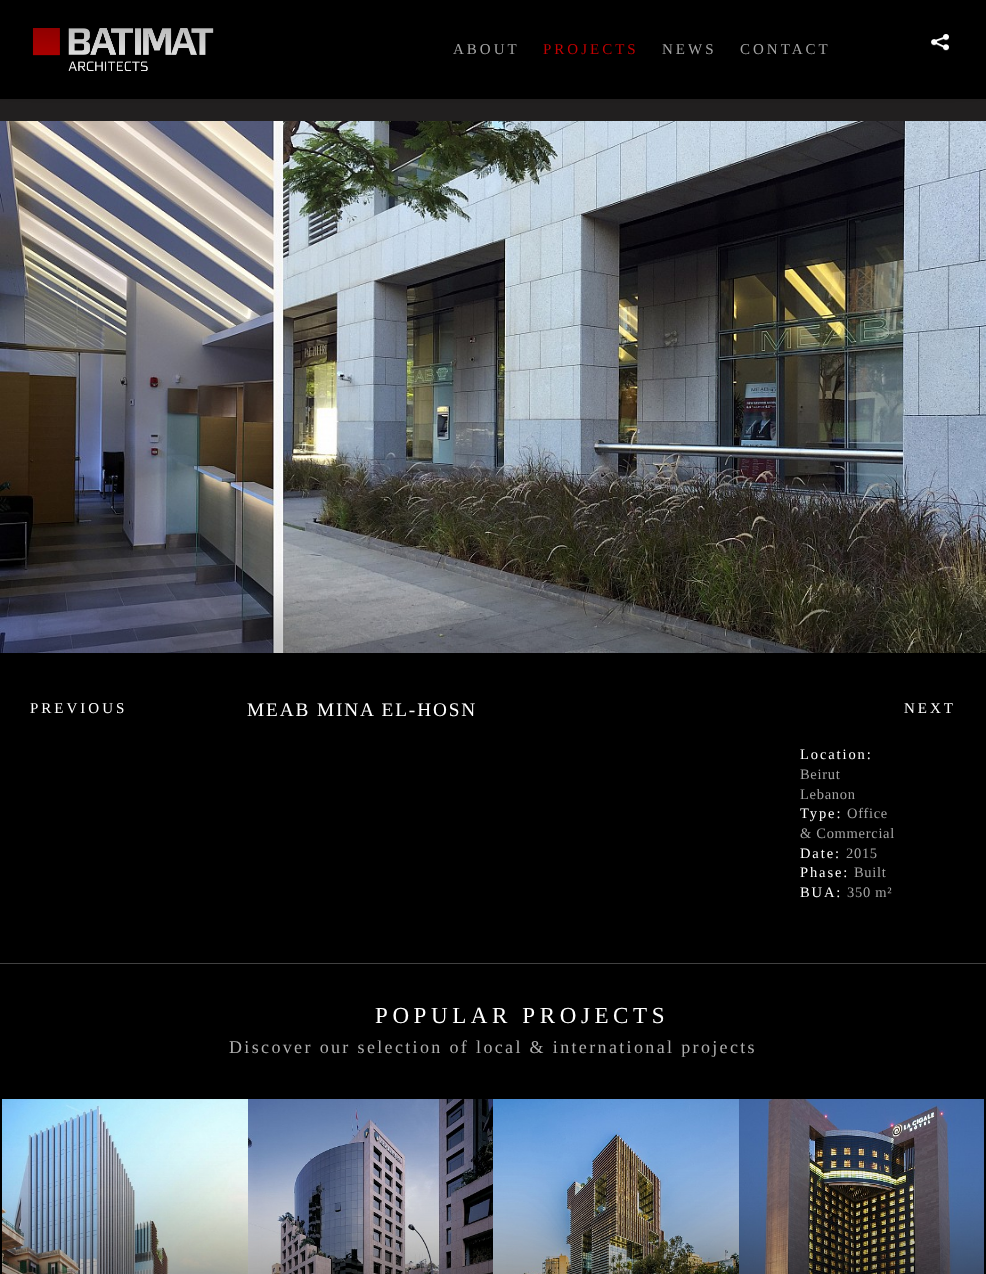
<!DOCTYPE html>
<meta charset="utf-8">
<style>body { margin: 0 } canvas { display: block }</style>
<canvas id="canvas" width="986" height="1274"></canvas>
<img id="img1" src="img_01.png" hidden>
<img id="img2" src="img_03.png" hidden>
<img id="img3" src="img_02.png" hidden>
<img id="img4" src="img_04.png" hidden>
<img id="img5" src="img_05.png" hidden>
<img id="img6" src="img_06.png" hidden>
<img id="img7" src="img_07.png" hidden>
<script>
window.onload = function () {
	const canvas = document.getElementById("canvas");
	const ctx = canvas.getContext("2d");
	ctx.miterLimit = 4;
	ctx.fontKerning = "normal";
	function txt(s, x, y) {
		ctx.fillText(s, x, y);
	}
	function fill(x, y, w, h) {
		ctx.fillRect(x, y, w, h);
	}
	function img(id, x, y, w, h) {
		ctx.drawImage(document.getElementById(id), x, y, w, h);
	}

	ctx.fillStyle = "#000000";
	fill(0, 0, 986, 1274);
	img("img1", 32, 28, 182, 43);
	ctx.fillStyle = "#211F1F";
	fill(0, 99, 986, 22);
	img("img2", 0, 121, 986, 532);
	ctx.fillStyle = "rgba(0, 0, 0, 0.75)";
	ctx.filter = "blur(35px)";
	ctx.beginPath();
	ctx.rect(-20, -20, 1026, 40);
	ctx.fill();
	ctx.filter = "none";
	img("img3", 931, 34, 18, 17);
	ctx.fillStyle = "rgba(0, 0, 0, 0.45)";
	ctx.filter = "blur(35px)";
	ctx.beginPath();
	ctx.rect(-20, 633, 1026, 40);
	ctx.fill();
	ctx.filter = "none";
	ctx.fillStyle = "#414141";
	fill(0, 963, 986, 1);
	img("img4", 2, 1099, 246, 175);
	ctx.save();
	ctx.beginPath();
	ctx.rect(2, 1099, 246, 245);
	ctx.clip();
	ctx.fillStyle = "rgba(0, 0, 0, 0.45)";
	ctx.filter = "blur(50px)";
	ctx.beginPath();
	ctx.rect(-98, 1244, 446, 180);
	ctx.fill();
	ctx.filter = "none";
	ctx.restore();
	img("img5", 248, 1099, 245, 175);
	ctx.save();
	ctx.beginPath();
	ctx.rect(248, 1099, 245, 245);
	ctx.clip();
	ctx.fillStyle = "rgba(0, 0, 0, 0.45)";
	ctx.filter = "blur(50px)";
	ctx.beginPath();
	ctx.rect(148, 1244, 445, 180);
	ctx.fill();
	ctx.filter = "none";
	ctx.restore();
	img("img6", 493, 1099, 246, 175);
	ctx.save();
	ctx.beginPath();
	ctx.rect(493, 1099, 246, 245);
	ctx.clip();
	ctx.fillStyle = "rgba(0, 0, 0, 0.45)";
	ctx.filter = "blur(50px)";
	ctx.beginPath();
	ctx.rect(393, 1244, 446, 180);
	ctx.fill();
	ctx.filter = "none";
	ctx.restore();
	img("img7", 739, 1099, 245, 175);
	ctx.save();
	ctx.beginPath();
	ctx.rect(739, 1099, 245, 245);
	ctx.clip();
	ctx.fillStyle = "rgba(0, 0, 0, 0.45)";
	ctx.filter = "blur(50px)";
	ctx.beginPath();
	ctx.rect(639, 1244, 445, 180);
	ctx.fill();
	ctx.filter = "none";
	ctx.restore();
	ctx.letterSpacing = "3px";
	ctx.font = "15px Liberation Serif";
	ctx.fillStyle = "#A4A4A4";
	txt("ABOUT", 453, 54);
	ctx.fillStyle = "#C20000";
	txt("PROJECTS", 543, 54);
	ctx.fillStyle = "#A4A4A4";
	txt("NEWS", 662, 54);
	txt("CONTACT", 740, 54);
	ctx.fillStyle = "#FFFFFF";
	txt("PREVIOUS", 30, 713);
	ctx.letterSpacing = "1.9px";
	ctx.font = "19.25px Liberation Serif";
	txt("MEAB MINA EL-HOSN", 247, 716);
	ctx.letterSpacing = "3px";
	ctx.font = "15px Liberation Serif";
	txt("NEXT", 904, 713);
	ctx.letterSpacing = "1.9px";
	ctx.font = "14.5px Liberation Serif";
	txt("Location:", 800, 759);
	ctx.letterSpacing = "0.7px";
	ctx.fillStyle = "#A4A4A4";
	txt("Beirut", 800, 779);
	txt("Lebanon", 800, 799);
	ctx.letterSpacing = "1.9px";
	ctx.fillStyle = "#FFFFFF";
	txt("Type:", 800, 818);
	ctx.letterSpacing = "0.7px";
	ctx.fillStyle = "#A4A4A4";
	txt("Office", 847, 818);
	txt("& Commercial", 800, 838);
	ctx.letterSpacing = "1.9px";
	ctx.fillStyle = "#FFFFFF";
	txt("Date:", 800, 858);
	ctx.letterSpacing = "0.7px";
	ctx.fillStyle = "#A4A4A4";
	txt("2015", 846, 858);
	ctx.letterSpacing = "1.9px";
	ctx.fillStyle = "#FFFFFF";
	txt("Phase:", 800, 877);
	ctx.letterSpacing = "0.7px";
	ctx.fillStyle = "#A4A4A4";
	txt("Built", 854, 877);
	ctx.letterSpacing = "1.9px";
	ctx.fillStyle = "#FFFFFF";
	txt("BUA:", 800, 897);
	ctx.letterSpacing = "0.7px";
	ctx.fillStyle = "#A4A4A4";
	txt("350 m²", 847, 897);
	ctx.letterSpacing = "4.6px";
	ctx.font = "23px Liberation Serif";
	ctx.fillStyle = "#FFFFFF";
	txt("POPULAR PROJECTS", 375, 1023);
	ctx.letterSpacing = "2.35px";
	ctx.font = "18px Liberation Serif";
	ctx.fillStyle = "#AEAEAE";
	txt("Discover our selection of local & international projects", 229, 1053);
};
</script>
